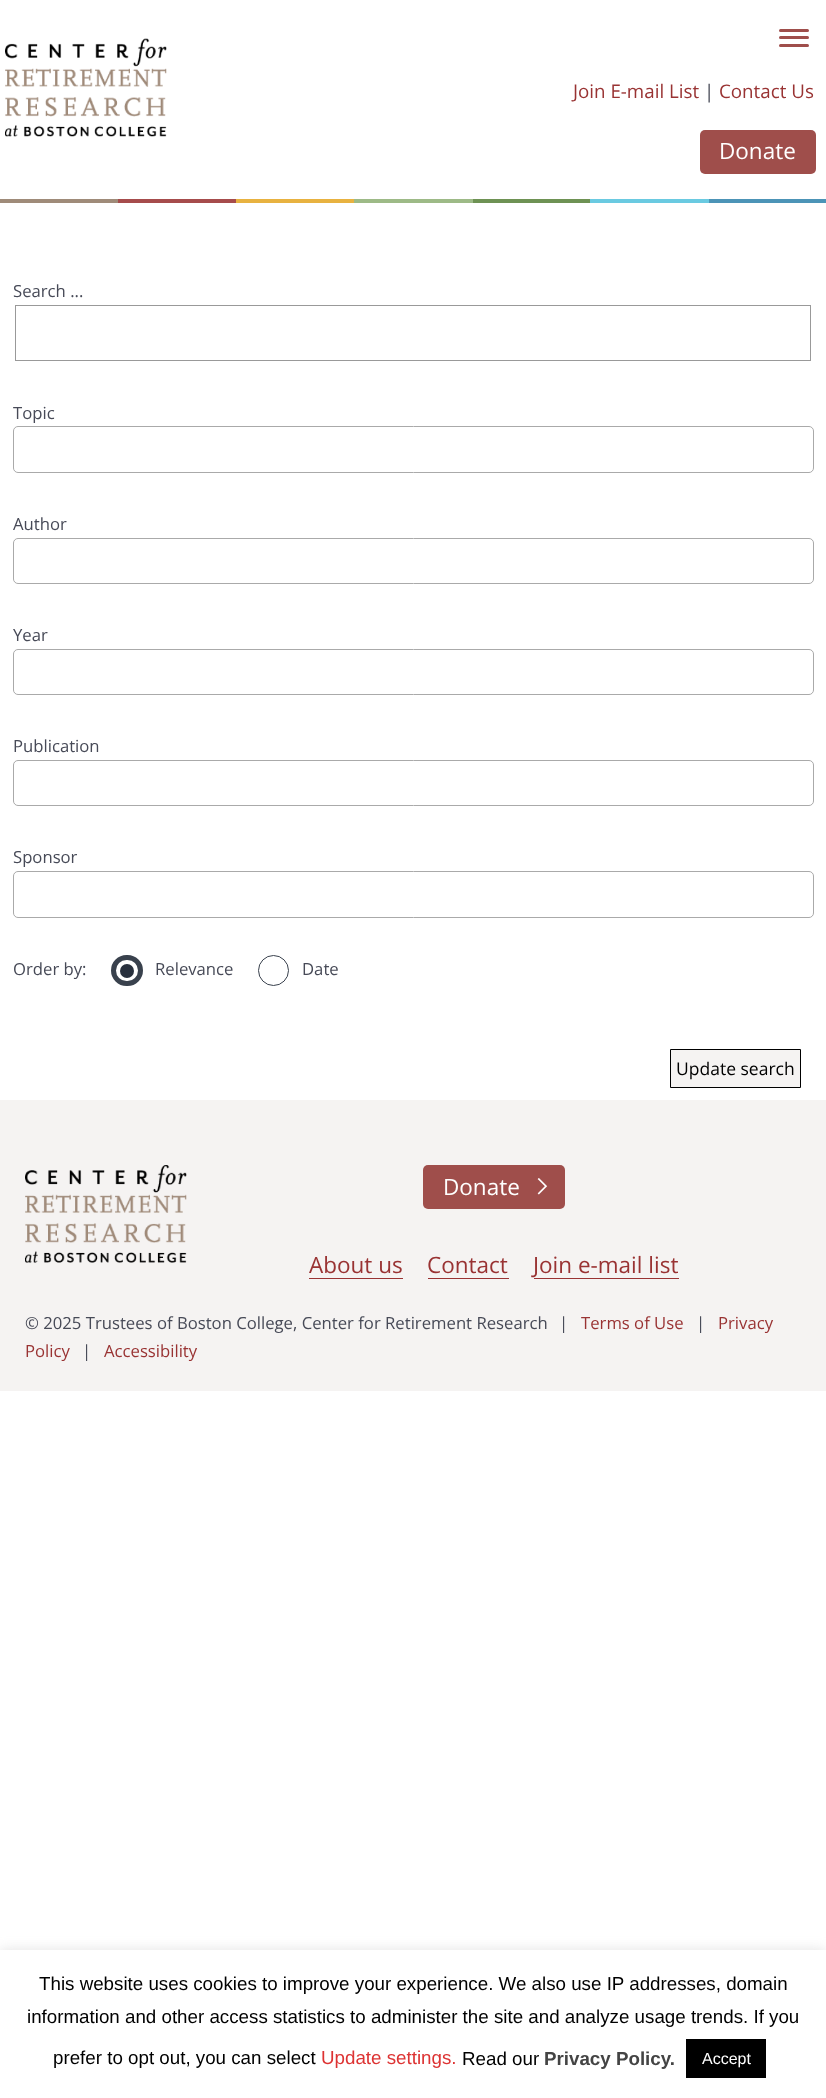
<!DOCTYPE html>
<meta charset="utf-8">
<style>body { margin: 0 } canvas { display: block }</style>
<canvas id="canvas" width="826" height="2098"></canvas>
<img id="img1" src="img_01.png" hidden>
<img id="img2" src="img_02.png" hidden>
<img id="img3" src="img_03.png" hidden>
<script>
window.onload = function () {
	const canvas = document.getElementById("canvas");
	const ctx = canvas.getContext("2d");
	ctx.miterLimit = 4;
	ctx.fontKerning = "normal";
	function txt(s, x, y) {
		ctx.fillText(s, x, y);
	}
	function fill(x, y, w, h) {
		ctx.fillRect(x, y, w, h);
	}
	function round(x, y, w, h, r) {
		ctx.beginPath();
		ctx.roundRect(x, y, w, h, r);
		ctx.fill();
	}
	function img(id, x, y, w, h) {
		ctx.drawImage(document.getElementById(id), x, y, w, h);
	}

	ctx.fillStyle = "#FFFFFF";
	fill(0, 0, 826, 2098);
	ctx.fillStyle = "#9F4E4B";
	round(779, 29, 30, 3, 1.5);
	round(779, 36, 30, 3, 1.5);
	round(779, 44, 30, 3, 1.5);
	img("img1", 5, 38, 162, 99);
	round(700, 130, 116, 44, 5);
	ctx.fillStyle = "#9F8B79";
	fill(0, 199, 118, 4);
	ctx.fillStyle = "#A64C4C";
	fill(118, 199, 118, 4);
	ctx.fillStyle = "#E8B240";
	fill(236, 199, 118, 4);
	ctx.fillStyle = "#9DBA87";
	fill(354, 199, 119, 4);
	ctx.fillStyle = "#6E9254";
	fill(473, 199, 117, 4);
	ctx.fillStyle = "#6ACAE1";
	fill(590, 199, 119, 4);
	ctx.fillStyle = "#4C94B7";
	fill(709, 199, 117, 4);
	ctx.strokeStyle = "#999999";
	ctx.strokeRect(15.5, 305.5, 795, 55);
	ctx.beginPath();
	ctx.roundRect(13.5, 426.5, 800, 46, 4.5);
	ctx.strokeStyle = "#AAAAAA";
	ctx.stroke();
	ctx.beginPath();
	ctx.roundRect(13.5, 538.5, 800, 45, 4.5);
	ctx.stroke();
	ctx.beginPath();
	ctx.roundRect(13.5, 649.5, 800, 45, 4.5);
	ctx.stroke();
	ctx.beginPath();
	ctx.roundRect(13.5, 760.5, 800, 45, 4.5);
	ctx.stroke();
	ctx.beginPath();
	ctx.roundRect(13.5, 871.5, 800, 46, 4.5);
	ctx.stroke();
	ctx.beginPath();
	ctx.roundRect(113.5, 957.5, 27, 26, 13);
	ctx.strokeStyle = "#39414D";
	ctx.lineWidth = 5;
	ctx.stroke();
	ctx.fillStyle = "#28303D";
	ctx.beginPath();
	ctx.arc(127, 971, 7, 0, Math.PI * 2);
	ctx.fill();
	ctx.beginPath();
	ctx.arc(273.5, 970.5, 15, 0, Math.PI * 2);
	ctx.lineWidth = 1;
	ctx.stroke();
	ctx.fillStyle = "#F5F3F2";
	ctx.beginPath();
	ctx.rect(670.5, 1049.5, 130, 38);
	ctx.fill();
	ctx.strokeStyle = "#000000";
	ctx.stroke();
	fill(0, 1100, 826, 291);
	img("img2", 25, 1165, 162, 98);
	ctx.fillStyle = "#9F4E4B";
	round(423, 1165, 142, 44, 5);
	img("img3", 537, 1178, 11, 17);
	ctx.fillStyle = "#993333";
	fill(309, 1278, 94, 1);
	fill(428, 1278, 81, 1);
	fill(534, 1278, 145, 1);
	ctx.fillStyle = "rgba(172, 171, 171, 0.3)";
	ctx.filter = "blur(6px)";
	ctx.beginPath();
	ctx.rect(0, 1949, 826, 149);
	ctx.fill();
	ctx.filter = "none";
	ctx.fillStyle = "#FFFFFF";
	fill(0, 1950, 826, 148);
	ctx.fillStyle = "#000000";
	fill(686, 2039, 80, 39);
	ctx.font = "18.75px Open Sans";
	ctx.fillStyle = "#993333";
	txt("Join E-mail List", 573, 98);
	ctx.fillStyle = "#474A57";
	txt("|", 704, 98);
	ctx.fillStyle = "#993333";
	txt("Contact Us", 719, 98);
	ctx.font = "22.5px Open Sans";
	ctx.fillStyle = "#FFFFFF";
	txt("Donate", 719, 159);
	ctx.font = "16.7px Open Sans";
	ctx.fillStyle = "#474A57";
	txt("Search ...", 13, 297);
	txt("Topic", 13, 419);
	txt("Author", 13, 530);
	txt("Year", 13, 641);
	txt("Publication", 13, 752);
	txt("Sponsor", 13, 863);
	txt("Order by:", 13, 975);
	txt("Relevance", 155, 975);
	txt("Date", 302, 975);
	ctx.font = "17.5px Open Sans";
	ctx.fillStyle = "#000000";
	txt("Update search", 676, 1075);
	ctx.font = "22.5px Open Sans";
	ctx.fillStyle = "#FFFFFF";
	txt("Donate", 443, 1195);
	ctx.fillStyle = "#993333";
	txt("About us", 309, 1273);
	txt("Contact", 427, 1273);
	txt("Join e-mail list", 533, 1273);
	ctx.font = "16.7px Open Sans";
	ctx.fillStyle = "#474A57";
	txt("© 2025 Trustees of Boston College, Center for Retirement Research", 25, 1329);
	txt("|", 559, 1329);
	ctx.fillStyle = "#993333";
	txt("Terms of Use", 581, 1329);
	ctx.fillStyle = "#474A57";
	txt("|", 696, 1329);
	ctx.fillStyle = "#993333";
	txt("Privacy", 718, 1329);
	txt("Policy", 25, 1357);
	ctx.fillStyle = "#474A57";
	txt("|", 82, 1357);
	ctx.fillStyle = "#993333";
	txt("Accessibility", 104, 1357);
	ctx.font = "18.75px Liberation Sans";
	ctx.fillStyle = "#000000";
	txt("This website uses cookies to improve your experience. We also use IP addresses, domain", 39, 1990);
	txt("information and other access statistics to administer the site and analyze usage trends. If you", 27, 2023);
	txt("prefer to opt out, you can select", 53, 2064);
	ctx.fillStyle = "#DD3333";
	txt("Update settings.", 321, 2064);
	ctx.fillStyle = "#000000";
	txt("Read our", 462, 2065);
	ctx.font = "bold 18.75px Liberation Sans";
	ctx.fillStyle = "#444444";
	txt("Privacy Policy.", 544, 2065);
	ctx.font = "16px Liberation Sans";
	ctx.fillStyle = "#FFFFFF";
	txt("Accept", 702, 2064);
};
</script>
